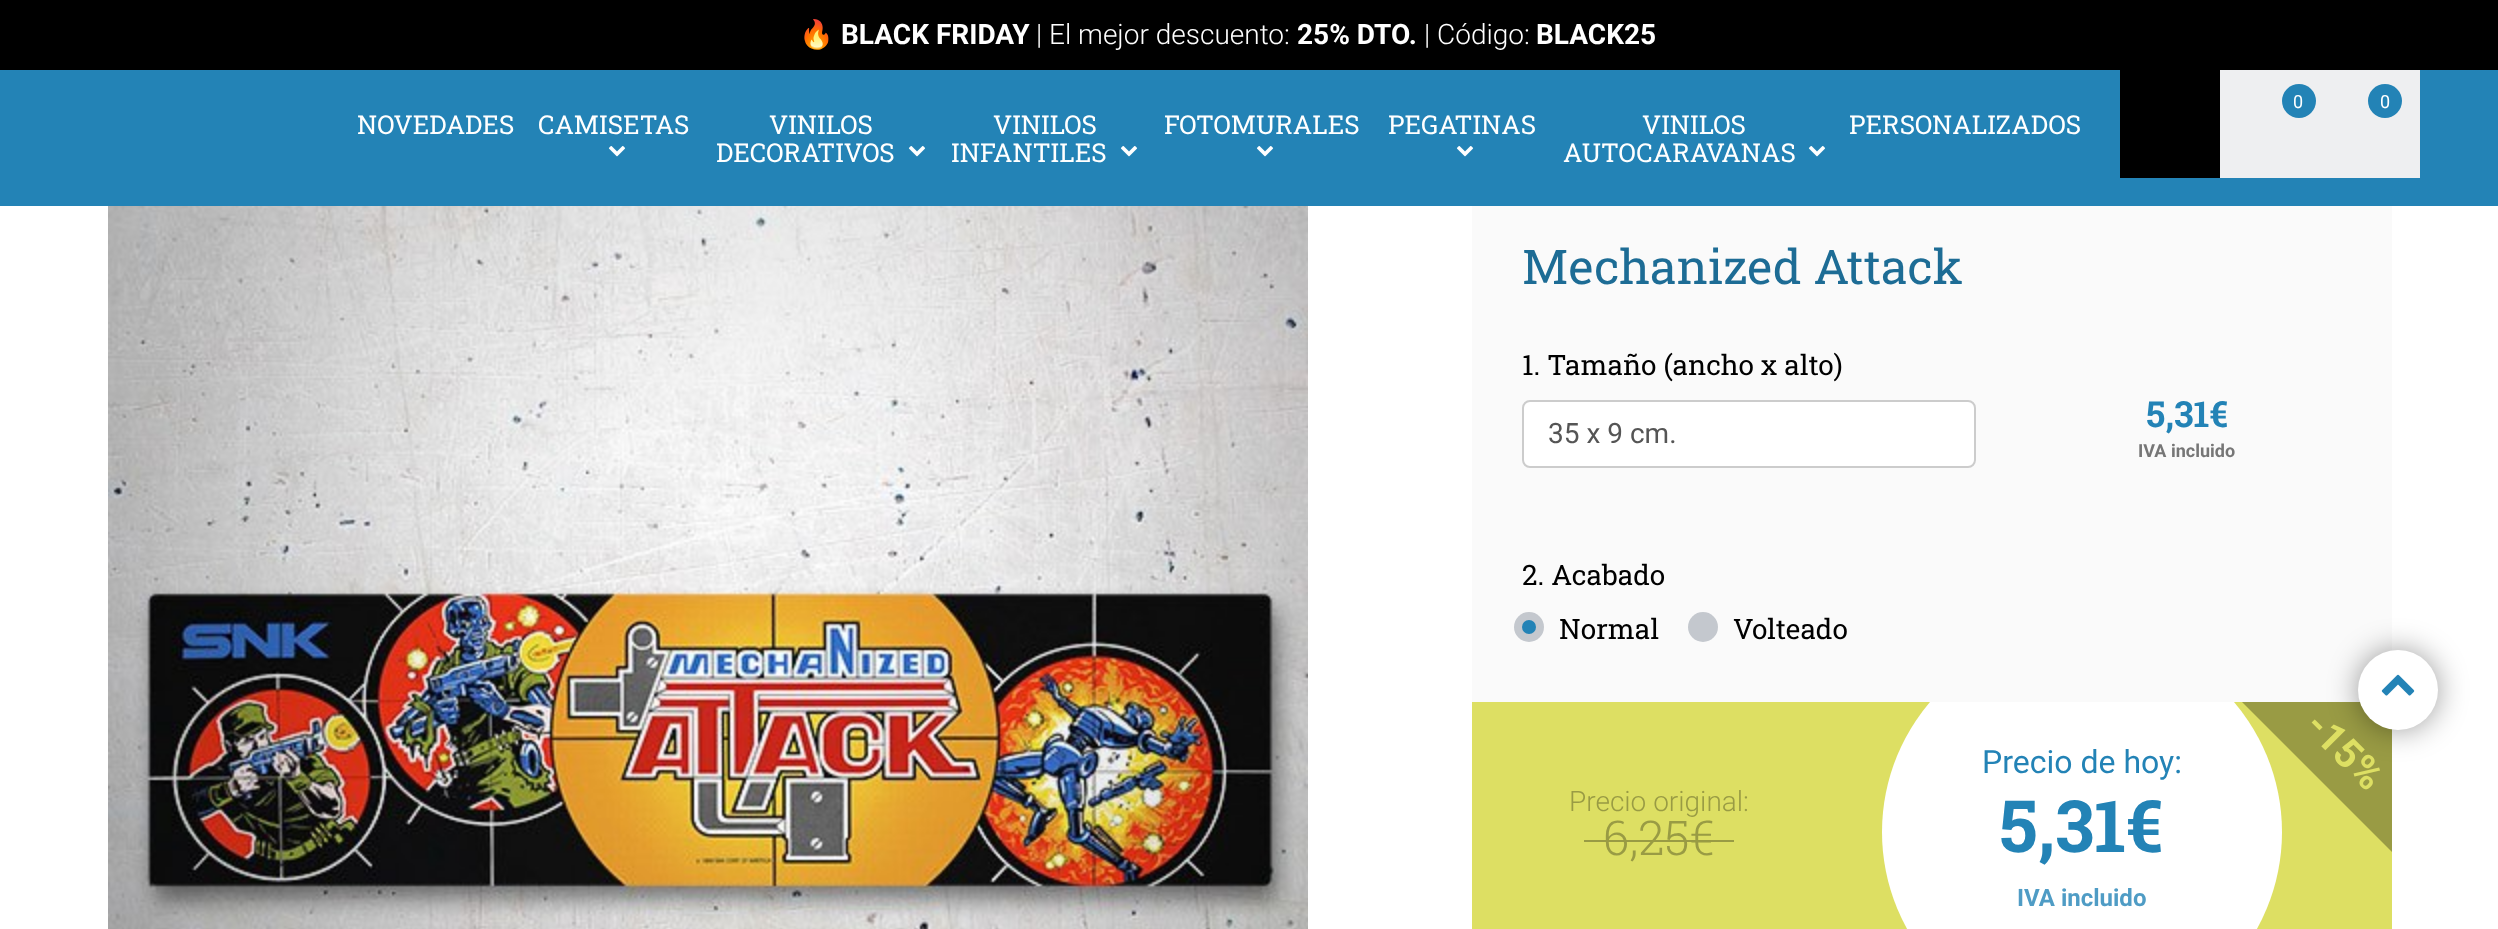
<!DOCTYPE html>
<meta charset="utf-8">
<style>body { margin: 0 } canvas { display: block }</style>
<canvas id="canvas" width="2498" height="929"></canvas>
<img id="img1" src="img_01.png" hidden>
<img id="img2" src="img_02.png" hidden>
<img id="img3" src="img_03.png" hidden>
<script>
window.onload = function () {
	const canvas = document.getElementById("canvas");
	const ctx = canvas.getContext("2d");
	ctx.miterLimit = 4;
	ctx.fontKerning = "normal";
	function txt(s, x, y) {
		ctx.fillText(s, x, y);
	}
	function fill(x, y, w, h) {
		ctx.fillRect(x, y, w, h);
	}
	function img(id, x, y, w, h) {
		ctx.drawImage(document.getElementById(id), x, y, w, h);
	}

	ctx.fillStyle = "#FFFFFF";
	fill(0, 0, 2498, 929);
	ctx.fillStyle = "#000000";
	fill(0, 0, 2498, 70);
	ctx.fillStyle = "#2383B6";
	fill(0, 70, 2498, 136);
	ctx.fillStyle = "#000000";
	fill(2120, 70, 100, 108);
	ctx.fillStyle = "#EEEFF1";
	fill(2220, 70, 200, 108);
	ctx.fillStyle = "#2383B6";
	ctx.beginPath();
	ctx.arc(2299, 101, 17, 0, Math.PI * 2);
	ctx.fill();
	ctx.beginPath();
	ctx.arc(2385, 101, 17, 0, Math.PI * 2);
	ctx.fill();
	img("img1", 608, 146, 18, 11);
	img("img1", 908, 146, 18, 11);
	img("img1", 1120, 146, 18, 11);
	img("img1", 1256, 146, 18, 11);
	img("img1", 1456, 146, 18, 11);
	img("img1", 1808, 146, 18, 11);
	img("img2", 108, 206, 1200, 723);
	ctx.fillStyle = "#FAFAFA";
	fill(1472, 206, 920, 496);
	ctx.fillStyle = "#FFFFFF";
	ctx.beginPath();
	ctx.roundRect(1523, 401, 452, 66, 7);
	ctx.fill();
	ctx.strokeStyle = "#CCCCCC";
	ctx.lineWidth = 2;
	ctx.stroke();
	ctx.fillStyle = "#C4C8CE";
	ctx.beginPath();
	ctx.arc(1529, 627, 15, 0, Math.PI * 2);
	ctx.fill();
	ctx.fillStyle = "#2383B6";
	ctx.beginPath();
	ctx.arc(1529, 627, 7, 0, Math.PI * 2);
	ctx.fill();
	ctx.fillStyle = "#C4C8CE";
	ctx.beginPath();
	ctx.arc(1703, 627, 15, 0, Math.PI * 2);
	ctx.fill();
	ctx.fillStyle = "#DDDF63";
	fill(1472, 702, 920, 227);
	ctx.fillStyle = "#999B44";
	fill(1584, 840, 150, 2);
	ctx.save();
	ctx.beginPath();
	ctx.rect(1472, 702, 920, 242);
	ctx.clip();
	ctx.fillStyle = "#FFFFFF";
	ctx.beginPath();
	ctx.arc(2082, 832, 200, 0, Math.PI * 2);
	ctx.fill();
	ctx.restore();
	ctx.beginPath();
	ctx.moveTo(2242, 702);
	ctx.lineTo(2392, 702);
	ctx.lineTo(2392, 852);
	ctx.closePath();
	ctx.fill();
	ctx.fillStyle = "rgba(0, 0, 0, 0.4)";
	ctx.filter = "blur(15px)";
	ctx.beginPath();
	ctx.roundRect(2358, 650, 80, 80, 40);
	ctx.fill();
	ctx.filter = "none";
	ctx.font = "28px Noto Color Emoji";
	ctx.fillStyle = "#FFFFFF";
	txt("🔥", 799, 44);
	ctx.font = "bold 28px Roboto";
	txt("BLACK FRIDAY", 841, 44);
	ctx.font = "300 28px Roboto";
	txt("| El mejor descuento:", 1036, 44);
	ctx.font = "bold 28px Roboto";
	txt("25% DTO.", 1297, 44);
	ctx.font = "300 28px Roboto";
	txt("| Código:", 1424, 44);
	ctx.font = "bold 28px Roboto";
	txt("BLACK25", 1536, 44);
	ctx.font = "18px Roboto";
	txt("0", 2293, 108);
	txt("0", 2380, 108);
	ctx.font = "26px Roboto Slab";
	txt("NOVEDADES", 357, 134);
	txt("CAMISETAS", 538, 134);
	txt("VINILOS", 769, 134);
	txt("DECORATIVOS", 716, 162);
	txt("VINILOS", 993, 134);
	txt("INFANTILES", 951, 162);
	txt("FOTOMURALES", 1164, 134);
	txt("PEGATINAS", 1388, 134);
	txt("VINILOS", 1642, 134);
	txt("AUTOCARAVANAS", 1563, 162);
	txt("PERSONALIZADOS", 1849, 134);
	ctx.font = "48px Roboto Slab";
	ctx.fillStyle = "#1D6C95";
	txt("Mechanized Attack", 1522, 284);
	ctx.font = "28px Roboto Slab";
	ctx.fillStyle = "#000000";
	txt("1. Tamaño (ancho x alto)", 1522, 375);
	ctx.font = "28px Roboto";
	ctx.fillStyle = "#555555";
	txt("35 x 9 cm.", 1548, 443);
	ctx.font = "bold 36px Roboto Slab";
	ctx.fillStyle = "#2383B6";
	txt("5,31€", 2146, 427);
	ctx.font = "bold 18px Roboto";
	ctx.fillStyle = "#767676";
	txt("IVA incluido", 2138, 457);
	ctx.font = "28px Roboto Slab";
	ctx.fillStyle = "#000000";
	txt("2. Acabado", 1522, 585);
	txt("Normal", 1559, 639);
	txt("Volteado", 1733, 639);
	ctx.font = "300 28px Roboto";
	ctx.fillStyle = "#999B44";
	txt("Precio original:", 1569, 811);
	ctx.font = "300 48px Roboto Slab";
	txt("6,25€", 1603, 855);
	ctx.font = "32px Roboto";
	ctx.fillStyle = "#2383B6";
	txt("Precio de hoy:", 1982, 773);
	ctx.font = "bold 72px Roboto Slab";
	txt("5,31€", 1999, 852);
	ctx.font = "bold 24px Roboto";
	ctx.fillStyle = "#4F9CC5";
	txt("IVA incluido", 2017, 906);
	ctx.font = "bold 40px Roboto";
	ctx.fillStyle = "#DDDF63";
	ctx.save();
	ctx.translate(2303, 728);
	ctx.rotate(45 * Math.PI / 180);
	ctx.fillText("-15%", 0, 0);
	ctx.restore();
	ctx.fillStyle = "#FFFFFF";
	ctx.beginPath();
	ctx.arc(2398, 690, 40, 0, Math.PI * 2);
	ctx.fill();
	img("img3", 2381, 674, 34, 22);
};
</script>
